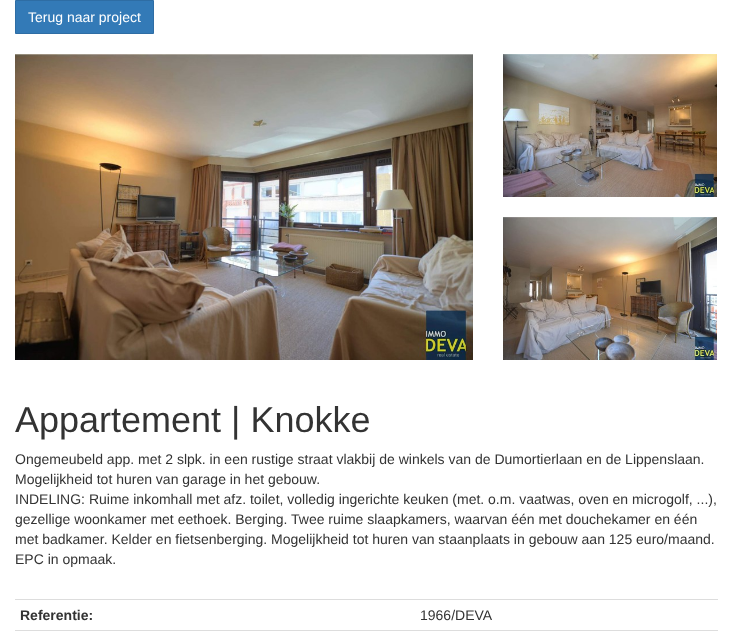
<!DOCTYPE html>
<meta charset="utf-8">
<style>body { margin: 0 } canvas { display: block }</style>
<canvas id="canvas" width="732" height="635"></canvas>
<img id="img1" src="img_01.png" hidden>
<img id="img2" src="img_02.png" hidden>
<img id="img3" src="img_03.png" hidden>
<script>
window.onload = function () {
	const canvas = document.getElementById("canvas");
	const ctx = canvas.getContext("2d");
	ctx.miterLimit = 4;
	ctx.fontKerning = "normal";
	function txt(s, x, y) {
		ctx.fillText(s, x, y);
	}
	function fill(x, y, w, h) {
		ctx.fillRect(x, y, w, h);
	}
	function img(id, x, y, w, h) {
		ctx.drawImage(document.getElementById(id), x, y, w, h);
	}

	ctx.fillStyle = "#FFFFFF";
	fill(0, 0, 732, 635);
	ctx.fillStyle = "#337AB7";
	ctx.beginPath();
	ctx.rect(15.5, 0.5, 138, 33);
	ctx.fill();
	ctx.strokeStyle = "#2E6DA4";
	ctx.stroke();
	img("img1", 15, 54, 458, 306);
	img("img2", 503, 54, 214, 143);
	img("img3", 503, 217, 214, 143);
	ctx.fillStyle = "#DDDDDD";
	fill(15, 599, 703, 1);
	fill(15, 630, 703, 1);
	ctx.font = "14px Liberation Sans";
	ctx.fillStyle = "#FFFFFF";
	txt("Terug naar project", 28, 22);
	ctx.font = "36px Liberation Sans";
	ctx.fillStyle = "#333333";
	txt("Appartement | Knokke", 15, 432);
	ctx.font = "14px Liberation Sans";
	txt("Ongemeubeld app. met 2 slpk. in een rustige straat vlakbij de winkels van de Dumortierlaan en de Lippenslaan.", 15, 464);
	txt("Mogelijkheid tot huren van garage in het gebouw.", 15, 484);
	txt("INDELING: Ruime inkomhall met afz. toilet, volledig ingerichte keuken (met. o.m. vaatwas, oven en microgolf, ...),", 15, 504);
	txt("gezellige woonkamer met eethoek. Berging. Twee ruime slaapkamers, waarvan één met douchekamer en één", 15, 524);
	txt("met badkamer. Kelder en fietsenberging. Mogelijkheid tot huren van staanplaats in gebouw aan 125 euro/maand.", 15, 544);
	txt("EPC in opmaak.", 15, 564);
	ctx.font = "bold 14px Liberation Sans";
	txt("Referentie:", 20, 620);
	ctx.font = "14px Liberation Sans";
	txt("1966/DEVA", 420, 620);
};
</script>
